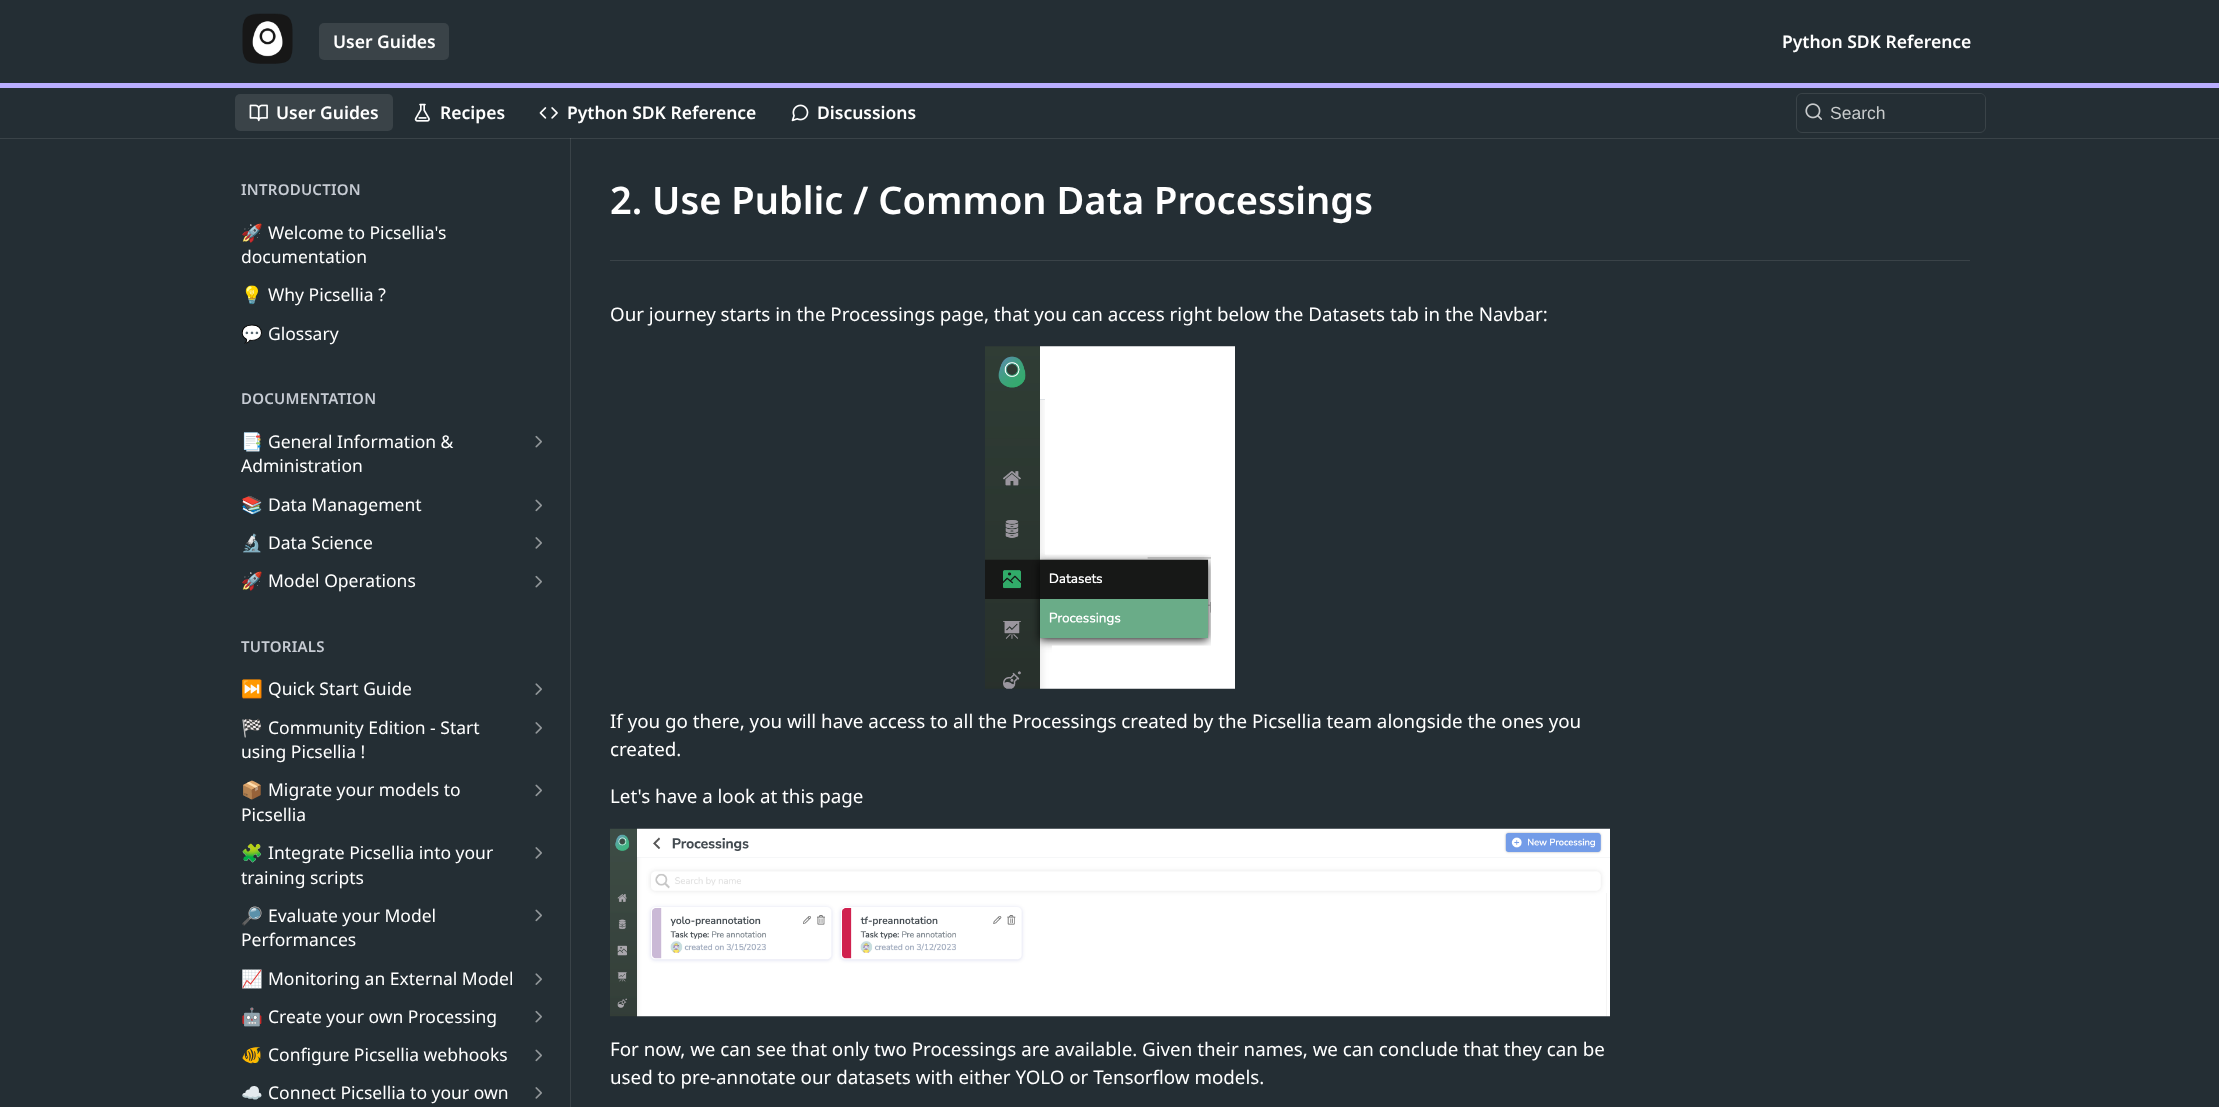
<!DOCTYPE html>
<meta charset="utf-8">
<style>body { margin: 0 } canvas { display: block }</style>
<canvas id="canvas" width="2219" height="1107"></canvas>
<img id="img1" src="img_01.png" hidden>
<img id="img2" src="img_02.png" hidden>
<img id="img3" src="img_03.png" hidden>
<img id="img4" src="img_04.png" hidden>
<img id="img5" src="img_05.png" hidden>
<img id="img6" src="img_06.png" hidden>
<img id="img7" src="img_07.png" hidden>
<img id="img8" src="img_08.png" hidden>
<img id="img9" src="img_09.png" hidden>
<img id="img10" src="img_10.png" hidden>
<img id="img11" src="img_11.png" hidden>
<img id="img12" src="img_12.png" hidden>
<script>
window.onload = function () {
	const canvas = document.getElementById("canvas");
	const ctx = canvas.getContext("2d");
	ctx.miterLimit = 4;
	ctx.fontKerning = "normal";
	function txt(s, x, y) {
		ctx.fillText(s, x, y);
	}
	function fill(x, y, w, h) {
		ctx.fillRect(x, y, w, h);
	}
	function round(x, y, w, h, r) {
		ctx.beginPath();
		ctx.roundRect(x, y, w, h, r);
		ctx.fill();
	}
	function img(id, x, y, w, h) {
		ctx.drawImage(document.getElementById(id), x, y, w, h);
	}

	ctx.fillStyle = "#242E34";
	fill(0, 0, 2219, 1107);
	ctx.fillStyle = "#3A4348";
	fill(0, 138, 2219, 1);
	ctx.fillStyle = "#BAAEFF";
	fill(0, 83, 2219, 5);
	img("img1", 242, 13, 51, 51);
	ctx.fillStyle = "#3A4348";
	round(319, 23, 130, 37, 5);
	round(235, 94, 158, 37, 5);
	img("img2", 249, 104, 19, 18);
	img("img3", 414, 103, 16, 19);
	img("img4", 539, 107, 19, 12);
	img("img5", 791, 104, 18, 18);
	ctx.beginPath();
	ctx.roundRect(1796.5, 93.5, 189, 39, 5.5);
	ctx.strokeStyle = "#3A4348";
	ctx.stroke();
	ctx.fillStyle = "#242E34";
	round(1798, 94, 187, 37, 5);
	img("img6", 1805, 103, 17, 17);
	ctx.fillStyle = "#3A4348";
	fill(570, 138, 1, 969);
	ctx.fillStyle = "#4E565A";
	fill(570, 138, 1, 1);
	img("img7", 535, 435, 7, 13);
	img("img8", 535, 499, 7, 13);
	img("img9", 535, 537, 7, 12);
	img("img7", 535, 575, 7, 13);
	img("img10", 535, 683, 7, 12);
	img("img9", 535, 722, 7, 12);
	img("img8", 535, 784, 7, 13);
	img("img9", 535, 847, 7, 12);
	img("img8", 535, 909, 7, 13);
	img("img10", 535, 973, 7, 12);
	img("img7", 535, 1010, 7, 13);
	img("img8", 535, 1049, 7, 13);
	img("img9", 535, 1087, 7, 12);
	ctx.fillStyle = "#3A4348";
	fill(610, 260, 1360, 1);
	img("img11", 985, 346, 250, 343);
	img("img12", 610, 828, 1000, 189);
	ctx.font = "600 17.5px Noto Sans";
	ctx.fillStyle = "#FFFFFF";
	txt("User Guides", 333, 48);
	txt("Python SDK Reference", 1782, 48);
	txt("User Guides", 276, 119);
	txt("Recipes", 440, 119);
	txt("Python SDK Reference", 567, 119);
	txt("Discussions", 817, 119);
	ctx.font = "17.5px Liberation Sans";
	ctx.fillStyle = "#C8CBCC";
	txt("Search", 1830, 119);
	ctx.letterSpacing = "0.25px";
	ctx.font = "600 15px Noto Sans";
	ctx.fillStyle = "#C6CBD3";
	txt("INTRODUCTION", 241, 195);
	ctx.letterSpacing = "0px";
	ctx.font = "17.5px Noto Color Emoji";
	ctx.fillStyle = "#FFFFFF";
	txt("🚀", 241, 239);
	ctx.font = "17.5px Noto Sans";
	txt("Welcome to Picsellia's", 268, 239);
	txt("documentation", 241, 263);
	ctx.font = "17.5px Noto Color Emoji";
	txt("💡", 241, 301);
	ctx.font = "17.5px Noto Sans";
	txt("Why Picsellia ?", 268, 301);
	ctx.font = "17.5px Noto Color Emoji";
	txt("💬", 241, 340);
	ctx.font = "17.5px Noto Sans";
	txt("Glossary", 268, 340);
	ctx.letterSpacing = "0.25px";
	ctx.font = "600 15px Noto Sans";
	ctx.fillStyle = "#C6CBD3";
	txt("DOCUMENTATION", 241, 404);
	ctx.letterSpacing = "0px";
	ctx.font = "17.5px Noto Color Emoji";
	ctx.fillStyle = "#FFFFFF";
	txt("📑", 241, 448);
	ctx.font = "17.5px Noto Sans";
	txt("General Information &", 268, 448);
	txt("Administration", 241, 472);
	ctx.font = "17.5px Noto Color Emoji";
	txt("📚", 241, 511);
	ctx.font = "17.5px Noto Sans";
	txt("Data Management", 268, 511);
	ctx.font = "17.5px Noto Color Emoji";
	txt("🔬", 241, 549);
	ctx.font = "17.5px Noto Sans";
	txt("Data Science", 268, 549);
	ctx.font = "17.5px Noto Color Emoji";
	txt("🚀", 241, 587);
	ctx.font = "17.5px Noto Sans";
	txt("Model Operations", 268, 587);
	ctx.letterSpacing = "0.25px";
	ctx.font = "600 15px Noto Sans";
	ctx.fillStyle = "#C6CBD3";
	txt("TUTORIALS", 241, 652);
	ctx.letterSpacing = "0px";
	ctx.font = "17.5px Noto Color Emoji";
	ctx.fillStyle = "#FFFFFF";
	txt("⏭️", 241, 695);
	ctx.font = "17.5px Noto Sans";
	txt("Quick Start Guide", 268, 695);
	ctx.font = "17.5px Noto Color Emoji";
	txt("🏁", 241, 734);
	ctx.font = "17.5px Noto Sans";
	txt("Community Edition - Start", 268, 734);
	txt("using Picsellia !", 241, 758);
	ctx.font = "17.5px Noto Color Emoji";
	txt("📦", 241, 796);
	ctx.font = "17.5px Noto Sans";
	txt("Migrate your models to", 268, 796);
	txt("Picsellia", 241, 821);
	ctx.font = "17.5px Noto Color Emoji";
	txt("🧩", 241, 859);
	ctx.font = "17.5px Noto Sans";
	txt("Integrate Picsellia into your", 268, 859);
	txt("training scripts", 241, 884);
	ctx.font = "17.5px Noto Color Emoji";
	txt("🔎", 241, 922);
	ctx.font = "17.5px Noto Sans";
	txt("Evaluate your Model", 268, 922);
	txt("Performances", 241, 946);
	ctx.font = "17.5px Noto Color Emoji";
	txt("📈", 241, 985);
	ctx.font = "17.5px Noto Sans";
	txt("Monitoring an External Model", 268, 985);
	ctx.font = "17.5px Noto Color Emoji";
	txt("🤖", 241, 1023);
	ctx.font = "17.5px Noto Sans";
	txt("Create your own Processing", 268, 1023);
	ctx.font = "17.5px Noto Color Emoji";
	txt("🐠", 241, 1061);
	ctx.font = "17.5px Noto Sans";
	txt("Configure Picsellia webhooks", 268, 1061);
	ctx.font = "17.5px Noto Color Emoji";
	txt("☁️", 241, 1099);
	ctx.font = "17.5px Noto Sans";
	txt("Connect Picsellia to your own", 268, 1099);
	ctx.font = "600 38px Noto Sans";
	txt("2. Use Public / Common Data Processings", 610, 214);
	ctx.font = "18.75px Noto Sans";
	txt("Our journey starts in the Processings page, that you can access right below the Datasets tab in the Navbar:", 610, 321);
	txt("If you go there, you will have access to all the Processings created by the Picsellia team alongside the ones you", 610, 728);
	txt("created.", 610, 756);
	txt("Let's have a look at this page", 610, 803);
	txt("For now, we can see that only two Processings are available. Given their names, we can conclude that they can be", 610, 1056);
	txt("used to pre-annotate our datasets with either YOLO or Tensorflow models.", 610, 1084);
};
</script>
